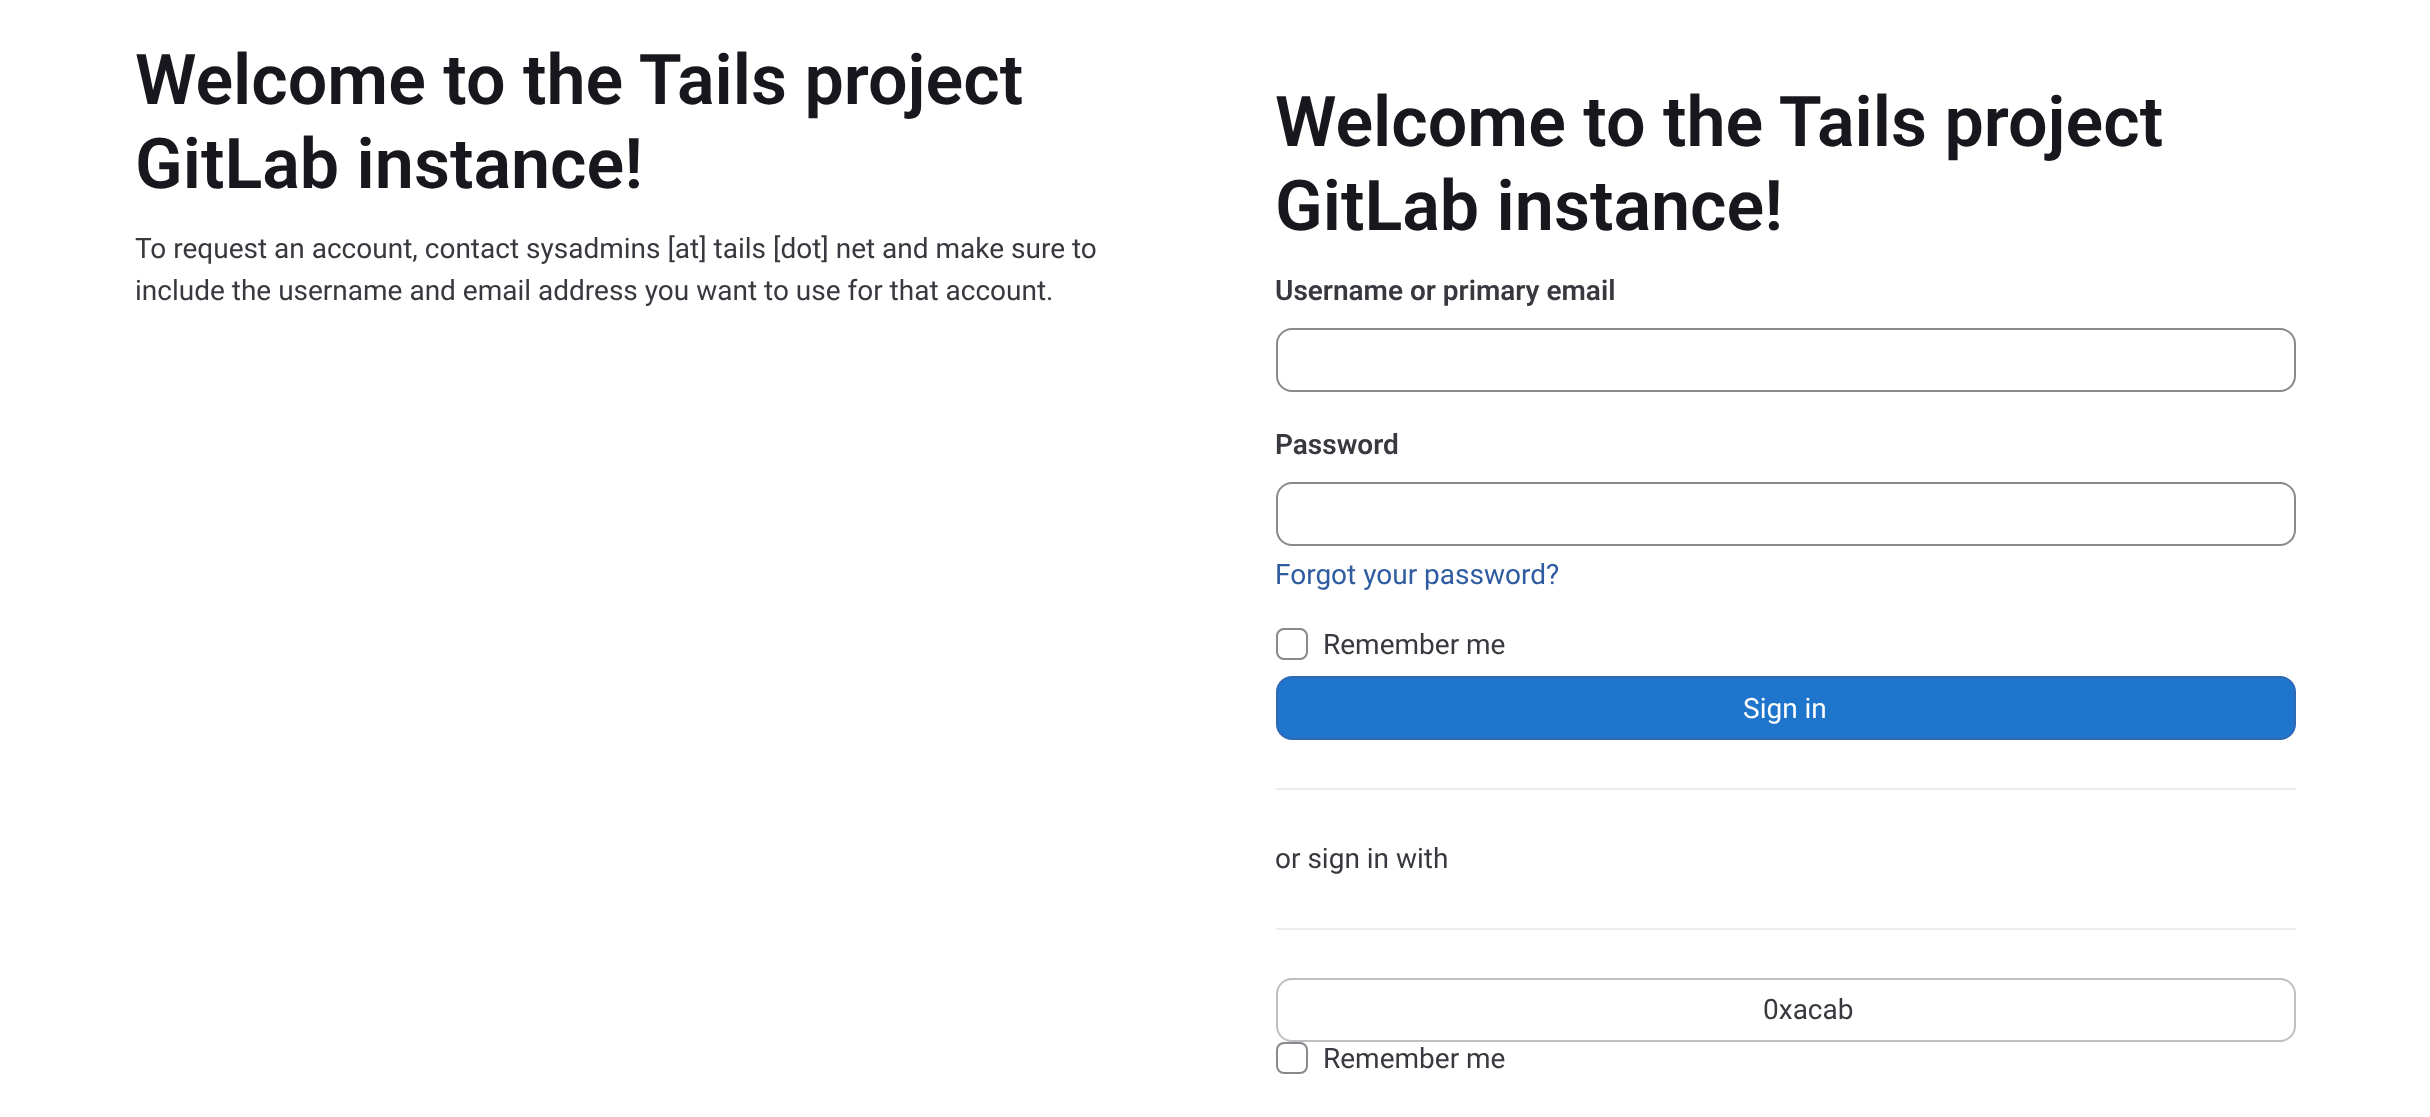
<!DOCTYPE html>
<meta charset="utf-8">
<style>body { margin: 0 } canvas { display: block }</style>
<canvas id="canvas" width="2430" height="1117"></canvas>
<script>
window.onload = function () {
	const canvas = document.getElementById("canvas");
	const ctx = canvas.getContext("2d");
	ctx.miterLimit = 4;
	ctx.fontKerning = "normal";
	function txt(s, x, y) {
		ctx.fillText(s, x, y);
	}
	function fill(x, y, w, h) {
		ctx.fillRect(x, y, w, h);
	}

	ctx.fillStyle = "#FFFFFF";
	fill(0, 0, 2430, 1117);
	ctx.beginPath();
	ctx.roundRect(1277, 329, 1018, 62, 15);
	ctx.strokeStyle = "#89888D";
	ctx.lineWidth = 2;
	ctx.stroke();
	ctx.beginPath();
	ctx.roundRect(1277, 483, 1018, 62, 15);
	ctx.stroke();
	ctx.beginPath();
	ctx.roundRect(1277, 629, 30, 30, 7);
	ctx.stroke();
	ctx.fillStyle = "#1F75CB";
	ctx.beginPath();
	ctx.roundRect(1277, 677, 1018, 62, 15);
	ctx.fill();
	ctx.strokeStyle = "#2F68B4";
	ctx.stroke();
	ctx.fillStyle = "#ECECEF";
	fill(1276, 788, 1020, 2);
	fill(1276, 928, 1020, 2);
	ctx.beginPath();
	ctx.roundRect(1277, 979, 1018, 62, 15);
	ctx.strokeStyle = "#BFBFC3";
	ctx.stroke();
	ctx.beginPath();
	ctx.roundRect(1277, 1043, 30, 30, 7);
	ctx.strokeStyle = "#89888D";
	ctx.stroke();
	ctx.font = "600 70px Roboto";
	ctx.fillStyle = "#18171D";
	txt("Welcome to the Tails project", 135, 104);
	txt("GitLab instance!", 135, 188);
	ctx.font = "28px Roboto";
	ctx.fillStyle = "#3A383F";
	txt("To request an account, contact sysadmins [at] tails [dot] net and make sure to", 135, 258);
	txt("include the username and email address you want to use for that account.", 135, 300);
	ctx.font = "600 70px Roboto";
	ctx.fillStyle = "#18171D";
	txt("Welcome to the Tails project", 1275, 146);
	txt("GitLab instance!", 1275, 230);
	ctx.font = "600 28px Roboto";
	ctx.fillStyle = "#3A383F";
	txt("Username or primary email", 1275, 300);
	txt("Password", 1275, 454);
	ctx.font = "28px Roboto";
	ctx.fillStyle = "#2F5CA0";
	txt("Forgot your password?", 1275, 584);
	ctx.fillStyle = "#3A383F";
	txt("Remember me", 1323, 654);
	ctx.fillStyle = "#FFFFFF";
	txt("Sign in", 1743, 718);
	ctx.fillStyle = "#3A383F";
	txt("or sign in with", 1275, 868);
	txt("0xacab", 1763, 1019);
	txt("Remember me", 1323, 1068);
};
</script>
